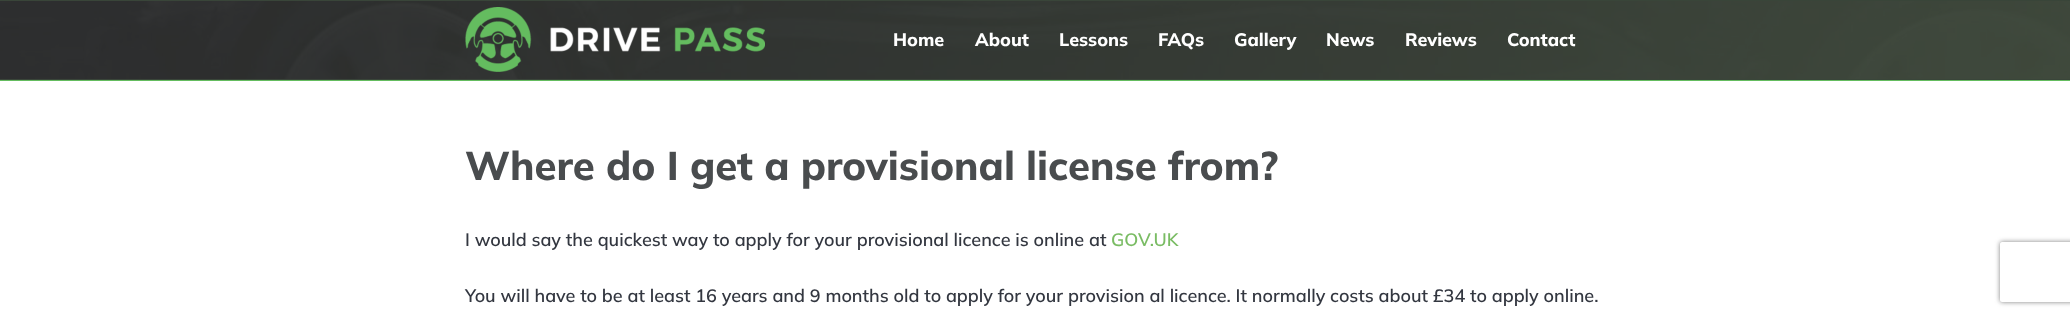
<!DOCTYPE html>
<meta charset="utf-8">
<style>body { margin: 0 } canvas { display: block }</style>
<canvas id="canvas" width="2070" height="316"></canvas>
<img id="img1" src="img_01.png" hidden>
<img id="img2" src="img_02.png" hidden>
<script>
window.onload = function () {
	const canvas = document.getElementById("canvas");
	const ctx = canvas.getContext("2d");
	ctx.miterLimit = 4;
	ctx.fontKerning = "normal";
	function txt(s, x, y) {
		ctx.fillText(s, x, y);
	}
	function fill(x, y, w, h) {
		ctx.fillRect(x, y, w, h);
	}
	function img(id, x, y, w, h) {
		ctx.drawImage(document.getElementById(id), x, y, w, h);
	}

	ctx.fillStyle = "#FFFFFF";
	fill(0, 0, 2070, 316);
	img("img1", 0, 1, 2070, 78);
	ctx.fillStyle = "#394539";
	fill(0, 0, 2070, 1);
	fill(0, 79, 2070, 1);
	ctx.fillStyle = "#64BC5F";
	fill(0, 80, 2070, 1);
	img("img2", 465, 7, 300, 65);
	ctx.save();
	ctx.beginPath();
	ctx.moveTo(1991, 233);
	ctx.lineTo(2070, 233);
	ctx.lineTo(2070, 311);
	ctx.lineTo(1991, 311);
	ctx.closePath();
	ctx.moveTo(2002, 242);
	ctx.lineTo(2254, 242);
	ctx.bezierCurveTo(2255, 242, 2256, 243, 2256, 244);
	ctx.lineTo(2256, 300);
	ctx.bezierCurveTo(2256, 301, 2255, 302, 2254, 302);
	ctx.lineTo(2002, 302);
	ctx.bezierCurveTo(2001, 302, 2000, 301, 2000, 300);
	ctx.lineTo(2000, 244);
	ctx.bezierCurveTo(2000, 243, 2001, 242, 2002, 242);
	ctx.closePath();
	ctx.clip("evenodd");
	ctx.fillStyle = "#808080";
	ctx.filter = "blur(2.5px)";
	ctx.beginPath();
	ctx.roundRect(2000, 242, 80, 60, 2);
	ctx.fill();
	ctx.filter = "none";
	ctx.restore();
	ctx.font = "800 18px Mulish";
	ctx.fillStyle = "#FFFFFF";
	txt("Home", 893, 46);
	txt("About", 975, 46);
	txt("Lessons", 1059, 46);
	txt("FAQs", 1158, 46);
	txt("Gallery", 1234, 46);
	txt("News", 1326, 46);
	txt("Reviews", 1405, 46);
	txt("Contact", 1507, 46);
	ctx.font = "800 40px Mulish";
	ctx.fillStyle = "#494C4E";
	txt("Where do I get a provisional license from?", 465, 180);
	ctx.font = "600 18px Mulish";
	ctx.fillStyle = "#333740";
	txt("I would say the quickest way to apply for your provisional licence is online at", 465, 246);
	ctx.fillStyle = "#7ABC64";
	txt("GOV.UK", 1111, 246);
	ctx.fillStyle = "#333740";
	txt("You will have to be at least 16 years and 9 months old to apply for your provision al licence. It normally costs about £34 to apply online.", 465, 302);
};
</script>
